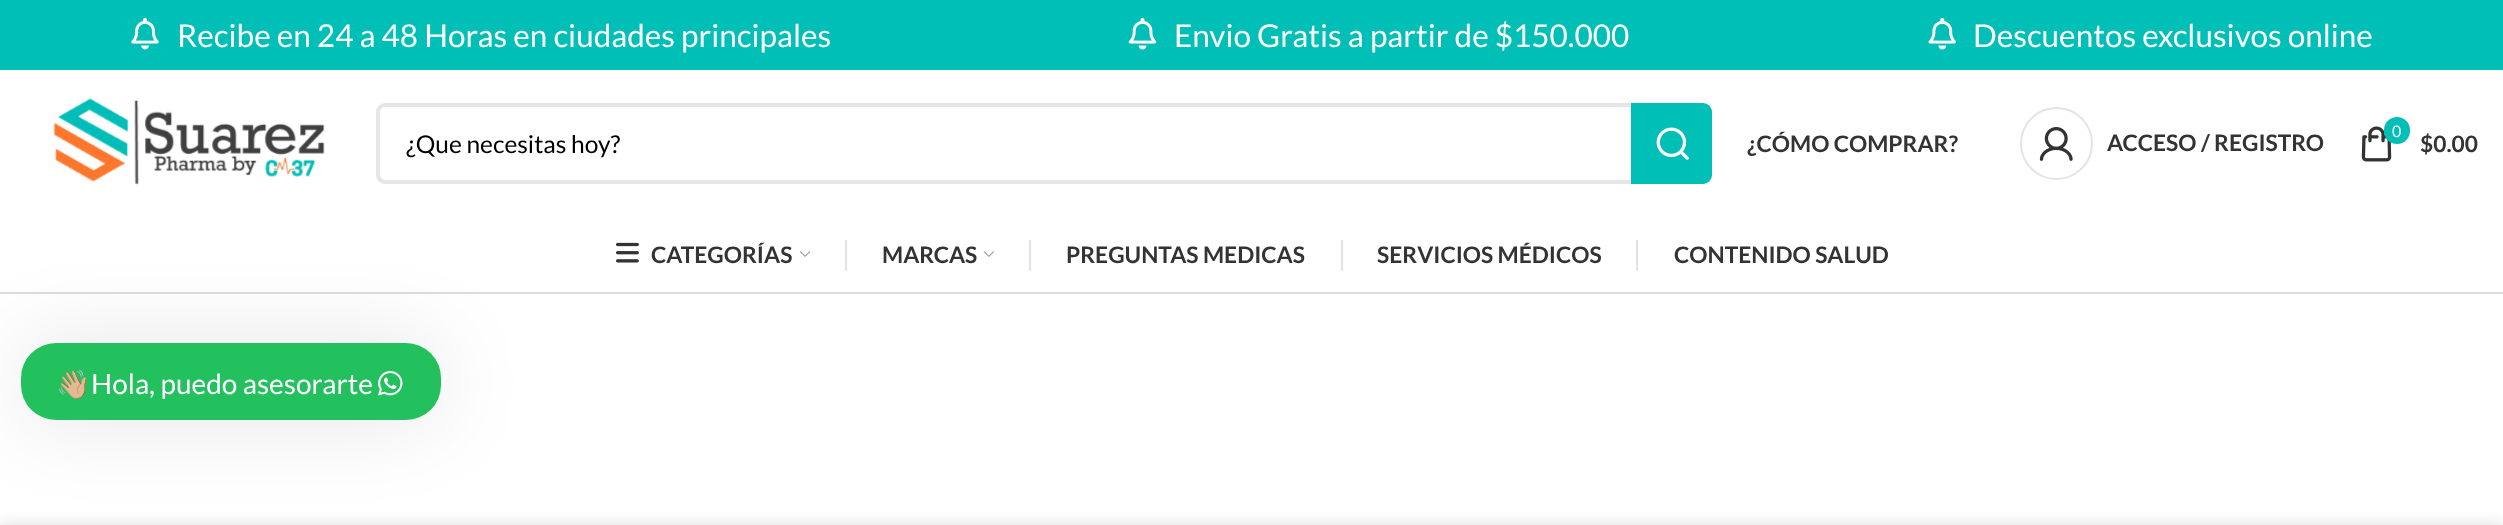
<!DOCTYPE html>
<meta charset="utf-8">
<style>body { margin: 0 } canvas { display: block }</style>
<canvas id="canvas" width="2503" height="525"></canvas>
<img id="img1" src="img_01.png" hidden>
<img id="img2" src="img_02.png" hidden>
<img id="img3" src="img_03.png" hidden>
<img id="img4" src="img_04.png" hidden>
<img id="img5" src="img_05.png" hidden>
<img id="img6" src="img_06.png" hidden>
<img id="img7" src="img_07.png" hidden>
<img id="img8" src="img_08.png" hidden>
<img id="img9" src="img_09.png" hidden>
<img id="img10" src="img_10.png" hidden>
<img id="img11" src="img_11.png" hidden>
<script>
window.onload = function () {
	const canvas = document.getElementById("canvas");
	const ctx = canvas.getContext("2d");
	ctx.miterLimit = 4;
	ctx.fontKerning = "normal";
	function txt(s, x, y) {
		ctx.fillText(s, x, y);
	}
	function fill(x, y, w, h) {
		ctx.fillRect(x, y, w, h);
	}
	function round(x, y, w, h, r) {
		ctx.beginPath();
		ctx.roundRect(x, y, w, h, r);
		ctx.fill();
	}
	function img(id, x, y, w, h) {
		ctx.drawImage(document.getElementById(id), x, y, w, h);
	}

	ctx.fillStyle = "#FFFFFF";
	fill(0, 0, 2503, 525);
	ctx.fillStyle = "#00BFB7";
	fill(0, 0, 2503, 70);
	img("img1", 131, 18, 28, 32);
	img("img2", 1128, 17, 29, 33);
	img("img3", 1928, 17, 28, 33);
	img("img4", 53, 98, 272, 87);
	ctx.beginPath();
	ctx.roundRect(378, 105, 1332, 77, 7);
	ctx.strokeStyle = "#E6E6E6";
	ctx.lineWidth = 4;
	ctx.stroke();
	ctx.beginPath();
	ctx.roundRect(1631, 103, 81, 81, [0, 9, 9, 0]);
	ctx.fill();
	img("img5", 1656, 127, 33, 33);
	ctx.beginPath();
	ctx.arc(2056.5, 143.5, 35.5, 0, Math.PI * 2);
	ctx.strokeStyle = "#E4E4E4";
	ctx.lineWidth = 2;
	ctx.stroke();
	img("img6", 2039, 127, 34, 34);
	img("img7", 2361, 126, 31, 36);
	round(2384, 117, 26, 27, 13);
	ctx.fillStyle = "#DCDCDC";
	fill(0, 292, 2503, 2);
	img("img8", 616, 242, 23, 21);
	img("img9", 800, 251, 11, 6);
	ctx.fillStyle = "#E4E4E4";
	fill(845, 240, 2, 31);
	img("img10", 983, 251, 11, 6);
	fill(1029, 240, 2, 31);
	fill(1341, 240, 2, 31);
	fill(1636, 240, 2, 31);
	ctx.fillStyle = "rgba(0, 0, 0, 0.1)";
	ctx.filter = "blur(44px)";
	ctx.beginPath();
	ctx.roundRect(21, 343, 420, 77, 35);
	ctx.fill();
	ctx.filter = "none";
	ctx.fillStyle = "#22C15E";
	round(21, 343, 420, 77, 35);
	img("img11", 378, 371, 25, 25);
	ctx.fillStyle = "rgba(0, 0, 0, 0.14)";
	ctx.filter = "blur(8px)";
	ctx.beginPath();
	ctx.rect(0, 525, 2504, 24);
	ctx.fill();
	ctx.filter = "none";
	ctx.font = "31.5px Lato";
	ctx.fillStyle = "#FFFFFF";
	txt("Recibe en 24 a 48 Horas en ciudades principales", 177, 47);
	txt("Envio Gratis a partir de $150.000", 1174, 47);
	txt("Descuentos exclusivos online", 1973, 47);
	ctx.font = "24.5px Lato";
	ctx.fillStyle = "#000000";
	txt("¿Que necesitas hoy?", 406, 153);
	ctx.font = "bold 22.75px Lato";
	ctx.fillStyle = "#333333";
	txt("¿CÓMO COMPRAR?", 1747, 152);
	txt("ACCESO / REGISTRO", 2107, 151);
	ctx.font = "16px Lato";
	ctx.fillStyle = "#FFFFFF";
	txt("0", 2392, 137);
	ctx.font = "bold 22.75px Lato";
	ctx.fillStyle = "#333333";
	txt("$0.00", 2420, 152);
	txt("CATEGORÍAS", 651, 263);
	txt("MARCAS", 882, 263);
	txt("PREGUNTAS MEDICAS", 1066, 263);
	txt("SERVICIOS MÉDICOS", 1377, 263);
	txt("CONTENIDO SALUD", 1674, 263);
	ctx.font = "28px Noto Color Emoji";
	ctx.fillStyle = "#FFFFFF";
	txt("👋🏼", 56, 394);
	ctx.font = "28px Lato";
	txt("Hola, puedo asesorarte", 91, 394);
};
</script>
